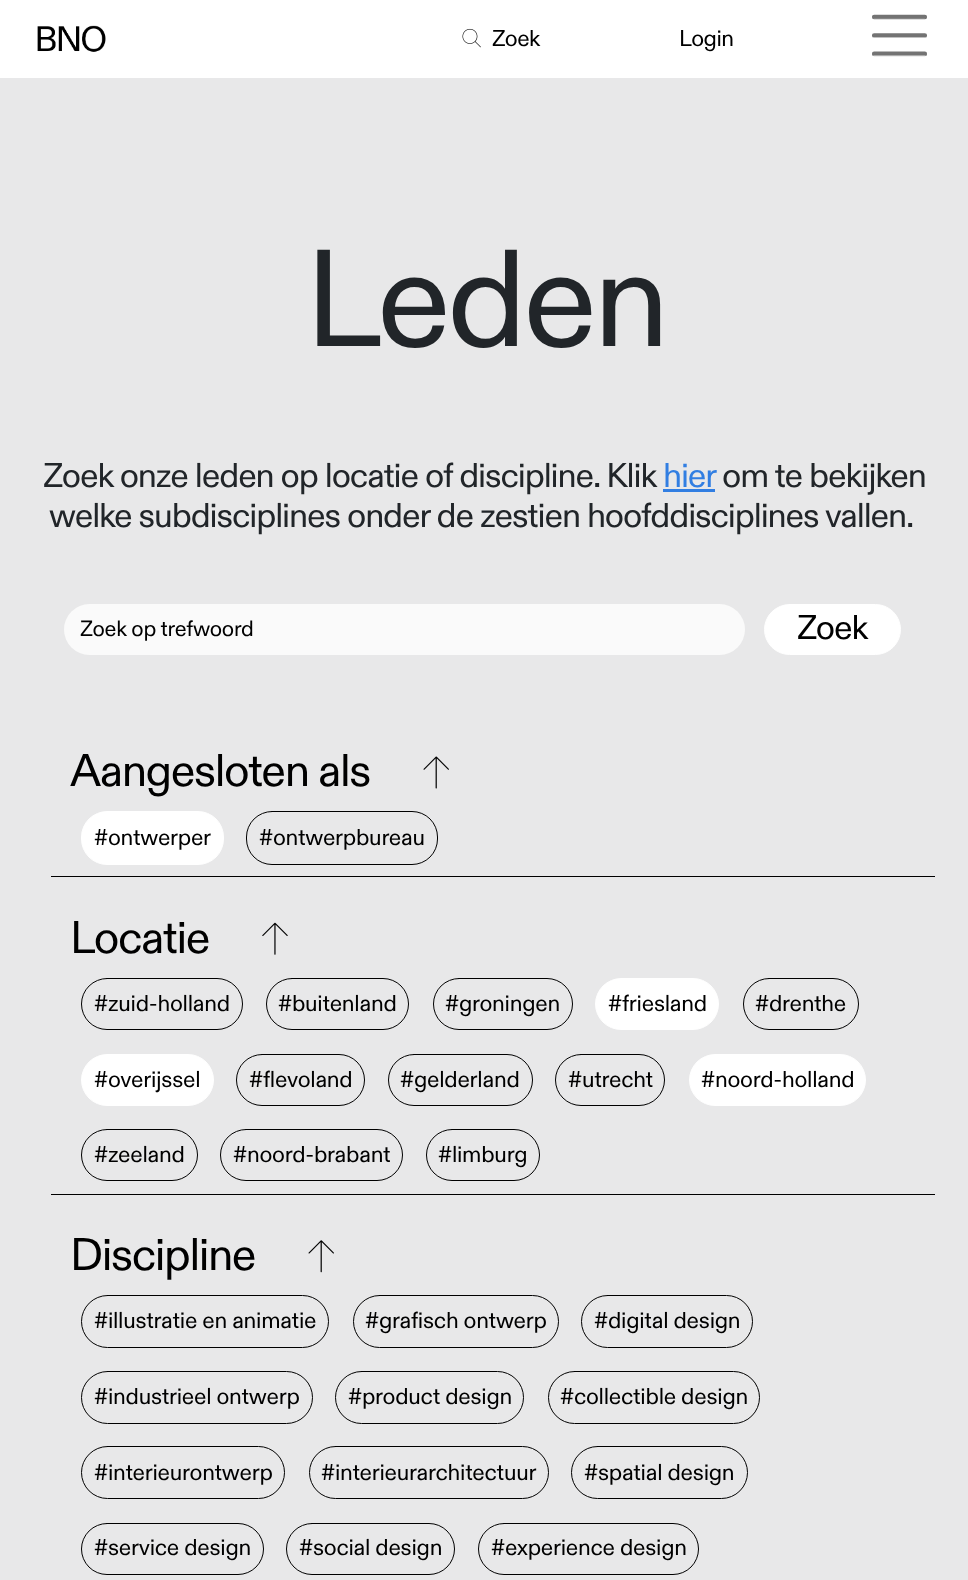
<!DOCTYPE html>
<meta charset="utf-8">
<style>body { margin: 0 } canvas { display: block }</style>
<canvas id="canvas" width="968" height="1580"></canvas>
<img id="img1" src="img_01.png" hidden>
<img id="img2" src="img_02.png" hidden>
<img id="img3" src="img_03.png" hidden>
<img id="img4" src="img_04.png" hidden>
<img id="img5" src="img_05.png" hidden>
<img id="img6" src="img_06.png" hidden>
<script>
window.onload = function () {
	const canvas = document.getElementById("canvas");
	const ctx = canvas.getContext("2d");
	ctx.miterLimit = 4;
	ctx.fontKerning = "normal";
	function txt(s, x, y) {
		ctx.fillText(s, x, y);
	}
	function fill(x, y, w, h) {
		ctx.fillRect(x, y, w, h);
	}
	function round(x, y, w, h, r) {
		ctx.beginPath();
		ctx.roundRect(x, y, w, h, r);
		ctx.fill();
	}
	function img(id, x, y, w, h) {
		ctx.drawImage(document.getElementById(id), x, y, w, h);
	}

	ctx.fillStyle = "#FFFFFF";
	fill(0, 0, 968, 1580);
	img("img1", 37, 25, 69, 27);
	img("img2", 462, 28, 19, 20);
	img("img3", 872, 14, 55, 43);
	ctx.beginPath();
	ctx.moveTo(874, 21);
	ctx.lineTo(924.5, 21);
	ctx.moveTo(874, 39.5);
	ctx.lineTo(924.5, 39.5);
	ctx.moveTo(874, 57.5);
	ctx.lineTo(924.5, 57.5);
	ctx.strokeStyle = "rgba(255, 255, 255, 0.55)";
	ctx.lineWidth = 4.6;
	ctx.lineCap = "round";
	ctx.stroke();
	ctx.fillStyle = "#E8E8E9";
	fill(0, 78, 968, 1502);
	ctx.fillStyle = "#317EE2";
	fill(663, 489, 52, 3);
	ctx.fillStyle = "#FAFAFA";
	round(64, 604, 681, 51, 25.5);
	ctx.fillStyle = "#FFFFFF";
	ctx.beginPath();
	ctx.roundRect(764.5, 604.5, 136, 50, 25);
	ctx.fill();
	ctx.strokeStyle = "#FFFFFF";
	ctx.lineWidth = 1;
	ctx.stroke();
	img("img4", 423, 756, 26, 33);
	ctx.beginPath();
	ctx.roundRect(81.5, 811.5, 142, 53, 25.5);
	ctx.fill();
	ctx.stroke();
	ctx.beginPath();
	ctx.roundRect(246.5, 811.5, 191, 53, 25.5);
	ctx.strokeStyle = "#000000";
	ctx.stroke();
	ctx.fillStyle = "#000000";
	fill(51, 876, 884, 1);
	img("img5", 262, 922, 26, 33);
	ctx.beginPath();
	ctx.roundRect(81.5, 978.5, 161, 51, 25.5);
	ctx.stroke();
	ctx.beginPath();
	ctx.roundRect(266.5, 978.5, 142, 51, 25.5);
	ctx.stroke();
	ctx.beginPath();
	ctx.roundRect(433.5, 978.5, 139, 51, 25.5);
	ctx.stroke();
	ctx.fillStyle = "#FFFFFF";
	ctx.beginPath();
	ctx.roundRect(595.5, 978.5, 123, 51, 25.5);
	ctx.fill();
	ctx.strokeStyle = "#FFFFFF";
	ctx.stroke();
	ctx.beginPath();
	ctx.roundRect(743.5, 978.5, 115, 51, 25.5);
	ctx.strokeStyle = "#000000";
	ctx.stroke();
	ctx.beginPath();
	ctx.roundRect(81.5, 1054.5, 132, 51, 25.5);
	ctx.fill();
	ctx.strokeStyle = "#FFFFFF";
	ctx.stroke();
	ctx.beginPath();
	ctx.roundRect(236.5, 1054.5, 128, 51, 25.5);
	ctx.strokeStyle = "#000000";
	ctx.stroke();
	ctx.beginPath();
	ctx.roundRect(388.5, 1054.5, 144, 51, 25.5);
	ctx.stroke();
	ctx.beginPath();
	ctx.roundRect(555.5, 1054.5, 109, 51, 25.5);
	ctx.stroke();
	ctx.beginPath();
	ctx.roundRect(689.5, 1054.5, 176, 51, 25.5);
	ctx.fill();
	ctx.strokeStyle = "#FFFFFF";
	ctx.stroke();
	ctx.beginPath();
	ctx.roundRect(81.5, 1129.5, 116, 51, 25.5);
	ctx.strokeStyle = "#000000";
	ctx.stroke();
	ctx.beginPath();
	ctx.roundRect(220.5, 1129.5, 182, 51, 25.5);
	ctx.stroke();
	ctx.beginPath();
	ctx.roundRect(426.5, 1129.5, 113, 51, 25.5);
	ctx.stroke();
	ctx.fillStyle = "#000000";
	fill(51, 1194, 884, 1);
	img("img6", 308, 1240, 26, 33);
	ctx.beginPath();
	ctx.roundRect(81.5, 1295.5, 247, 52, 26);
	ctx.stroke();
	ctx.beginPath();
	ctx.roundRect(353.5, 1295.5, 205, 52, 26);
	ctx.stroke();
	ctx.beginPath();
	ctx.roundRect(581.5, 1295.5, 171, 52, 26);
	ctx.stroke();
	ctx.beginPath();
	ctx.roundRect(81.5, 1371.5, 231, 52, 26);
	ctx.stroke();
	ctx.beginPath();
	ctx.roundRect(335.5, 1371.5, 188, 52, 26);
	ctx.stroke();
	ctx.beginPath();
	ctx.roundRect(548.5, 1371.5, 211, 52, 26);
	ctx.stroke();
	ctx.beginPath();
	ctx.roundRect(81.5, 1446.5, 203, 52, 26);
	ctx.stroke();
	ctx.beginPath();
	ctx.roundRect(309.5, 1446.5, 239, 52, 26);
	ctx.stroke();
	ctx.beginPath();
	ctx.roundRect(571.5, 1446.5, 176, 52, 26);
	ctx.stroke();
	ctx.beginPath();
	ctx.roundRect(81.5, 1523.5, 182, 51, 25.5);
	ctx.stroke();
	ctx.beginPath();
	ctx.roundRect(286.5, 1523.5, 168, 51, 25.5);
	ctx.stroke();
	ctx.beginPath();
	ctx.roundRect(478.5, 1523.5, 220, 51, 25.5);
	ctx.stroke();
	ctx.letterSpacing = "-0.5px";
	ctx.font = "23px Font";
	txt("Zoek", 492, 46);
	txt("Login", 679, 46);
	ctx.letterSpacing = "-4px";
	ctx.font = "137.5px Font";
	ctx.fillStyle = "#212529";
	txt("Leden", 305, 346);
	ctx.letterSpacing = "-1.1px";
	ctx.font = "34.4px Font";
	txt("Zoek onze leden op locatie of discipline. Klik", 43, 487);
	ctx.fillStyle = "#317EE2";
	txt("hier", 663, 487);
	ctx.fillStyle = "#212529";
	txt("om te bekijken", 722, 487);
	txt("welke subdisciplines onder de zestien hoofddisciplines vallen.", 49, 527);
	ctx.letterSpacing = "-0.25px";
	ctx.font = "22px Font";
	ctx.fillStyle = "#000000";
	txt("Zoek op trefwoord", 80, 636);
	ctx.letterSpacing = "-1.1px";
	ctx.font = "34.4px Font";
	txt("Zoek", 797, 639);
	ctx.letterSpacing = "-1.4px";
	ctx.font = "45.75px Font";
	txt("Aangesloten als", 70, 786);
	ctx.letterSpacing = "-0.25px";
	ctx.font = "23px Font";
	txt("#ontwerper", 94, 845);
	txt("#ontwerpbureau", 259, 845);
	ctx.letterSpacing = "-1.4px";
	ctx.font = "45.75px Font";
	txt("Locatie", 70, 953);
	ctx.letterSpacing = "-0.25px";
	ctx.font = "23px Font";
	txt("#zuid-holland", 94, 1011);
	txt("#buitenland", 278, 1011);
	txt("#groningen", 445, 1011);
	txt("#friesland", 608, 1011);
	txt("#drenthe", 755, 1011);
	txt("#overijssel", 94, 1087);
	txt("#flevoland", 249, 1087);
	txt("#gelderland", 400, 1087);
	txt("#utrecht", 568, 1087);
	txt("#noord-holland", 701, 1087);
	txt("#zeeland", 94, 1162);
	txt("#noord-brabant", 233, 1162);
	txt("#limburg", 438, 1162);
	ctx.letterSpacing = "-1.4px";
	ctx.font = "45.75px Font";
	txt("Discipline", 70, 1270);
	ctx.letterSpacing = "-0.25px";
	ctx.font = "23px Font";
	txt("#illustratie en animatie", 94, 1328);
	txt("#grafisch ontwerp", 365, 1328);
	txt("#digital design", 594, 1328);
	txt("#industrieel ontwerp", 94, 1404);
	txt("#product design", 348, 1404);
	txt("#collectible design", 560, 1404);
	txt("#interieurontwerp", 94, 1480);
	txt("#interieurarchitectuur", 321, 1480);
	txt("#spatial design", 584, 1480);
	txt("#service design", 94, 1555);
	txt("#social design", 299, 1555);
	txt("#experience design", 491, 1555);
};
</script>
